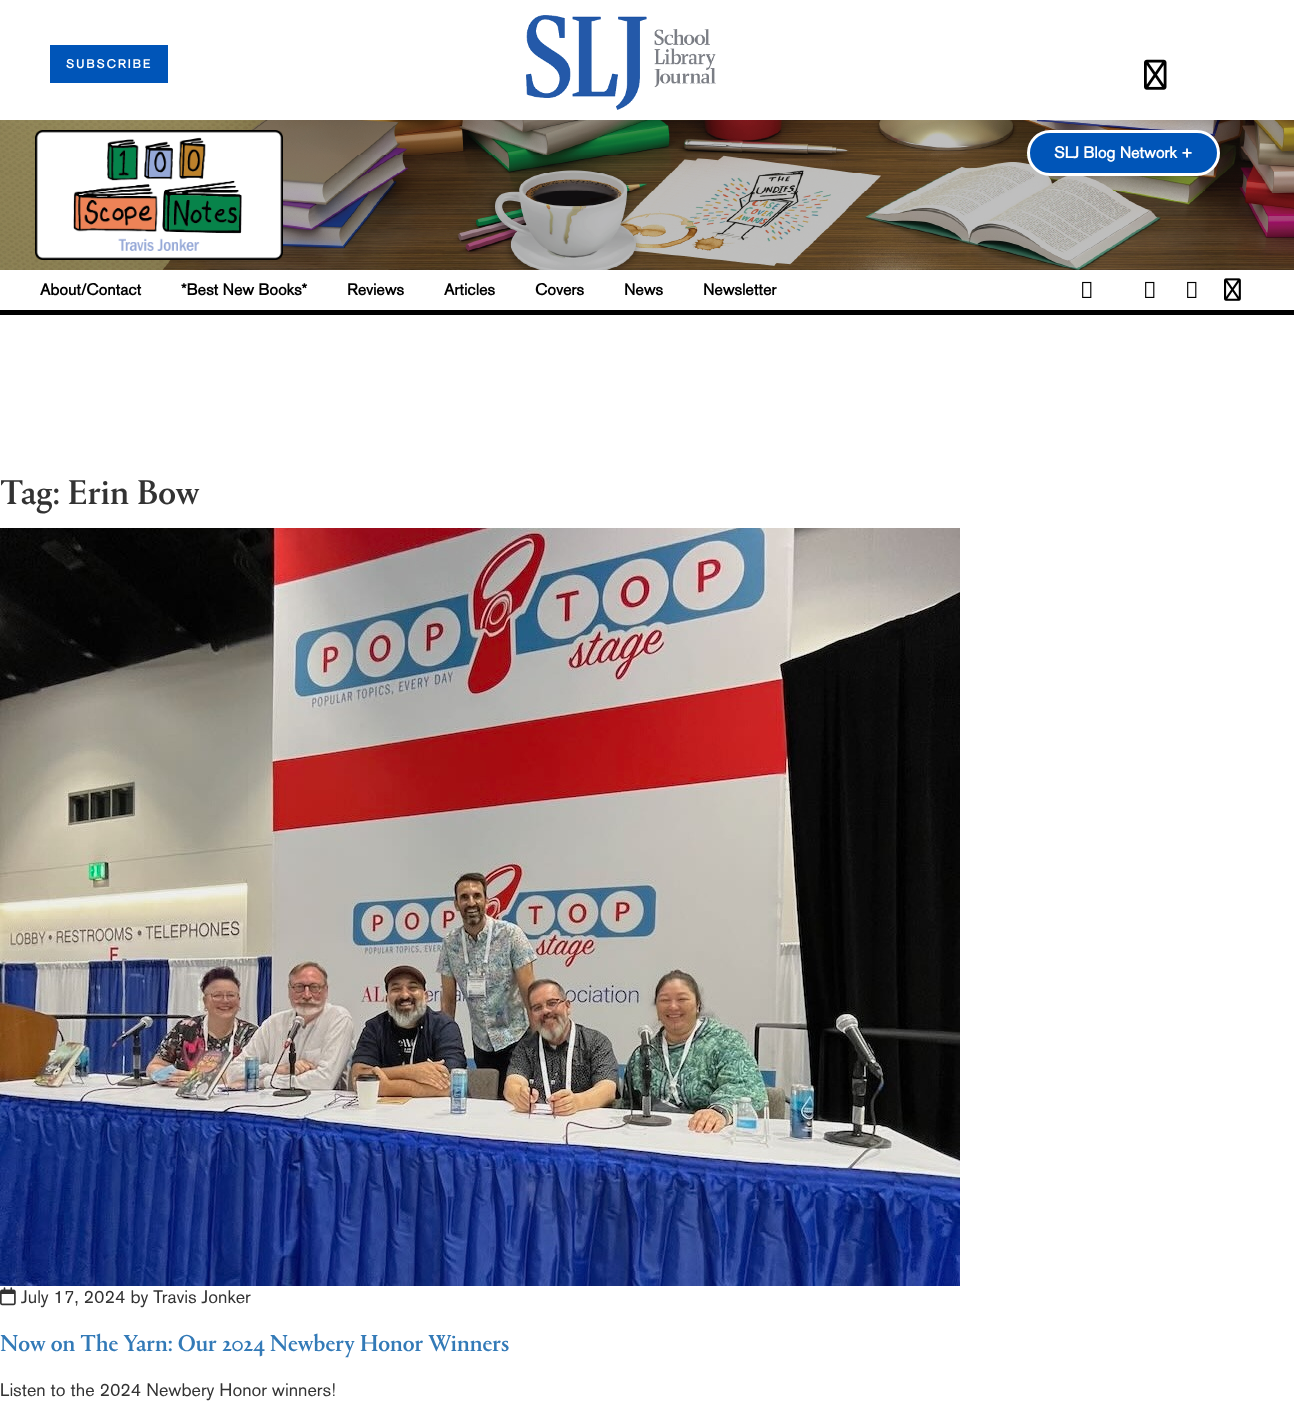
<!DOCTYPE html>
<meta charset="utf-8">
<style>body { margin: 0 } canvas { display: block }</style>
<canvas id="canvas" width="1294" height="1410"></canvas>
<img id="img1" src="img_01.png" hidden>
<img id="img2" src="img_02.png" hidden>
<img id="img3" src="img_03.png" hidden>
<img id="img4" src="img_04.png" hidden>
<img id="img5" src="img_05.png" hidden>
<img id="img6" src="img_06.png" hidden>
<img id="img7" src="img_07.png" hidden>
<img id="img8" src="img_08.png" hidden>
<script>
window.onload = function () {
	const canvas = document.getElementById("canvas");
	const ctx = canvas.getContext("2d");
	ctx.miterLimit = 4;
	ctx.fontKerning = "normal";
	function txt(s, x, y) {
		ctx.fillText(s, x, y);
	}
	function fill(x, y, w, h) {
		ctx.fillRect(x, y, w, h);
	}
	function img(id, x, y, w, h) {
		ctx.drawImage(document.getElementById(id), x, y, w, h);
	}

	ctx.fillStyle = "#FFFFFF";
	fill(0, 0, 1294, 1410);
	ctx.fillStyle = "#0055B8";
	fill(50, 45, 118, 38);
	img("img1", 526, 15, 190, 95);
	img("img2", 1144, 59, 23, 31);
	img("img3", 0, 120, 1294, 150);
	img("img4", 35, 130, 248, 130);
	ctx.beginPath();
	ctx.roundRect(1028.5, 131.5, 190, 43, 21.5);
	ctx.fill();
	ctx.strokeStyle = "#FFFFFF";
	ctx.lineWidth = 3;
	ctx.stroke();
	ctx.fillStyle = "#000000";
	fill(0, 310, 1294, 5);
	img("img5", 1082, 281, 10, 17);
	img("img5", 1145, 281, 10, 17);
	img("img5", 1187, 281, 10, 17);
	img("img6", 1224, 278, 17, 23);
	img("img7", 0, 528, 960, 758);
	img("img8", 0, 1287, 16, 19);
	ctx.letterSpacing = "2px";
	ctx.font = "bold 12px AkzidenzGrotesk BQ";
	ctx.fillStyle = "#FFFFFF";
	txt("SUBSCRIBE", 66, 68);
	ctx.letterSpacing = "0px";
	ctx.font = "bold 16px AkzidenzGrotesk BQ";
	txt("SLJ Blog Network +", 1054, 158);
	ctx.fillStyle = "#000000";
	txt("About/Contact", 40, 295);
	txt("*Best New Books*", 181, 295);
	txt("Reviews", 347, 295);
	txt("Articles", 444, 295);
	txt("Covers", 535, 295);
	txt("News", 624, 295);
	txt("Newsletter", 703, 295);
	ctx.font = "500 36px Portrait";
	ctx.fillStyle = "#333333";
	txt("Tag: Erin Bow", 0, 504);
	ctx.font = "500 18px AkzidenzGrotesk BQ";
	txt("July 17, 2024 by Travis Jonker", 21, 1303);
	ctx.font = "500 24px Portrait";
	ctx.fillStyle = "#337AB7";
	txt("Now on The Yarn: Our 2024 Newbery Honor Winners", 0, 1351);
	ctx.font = "500 18px AkzidenzGrotesk BQ";
	ctx.fillStyle = "#333333";
	txt("Listen to the 2024 Newbery Honor winners!", 0, 1396);
};
</script>
